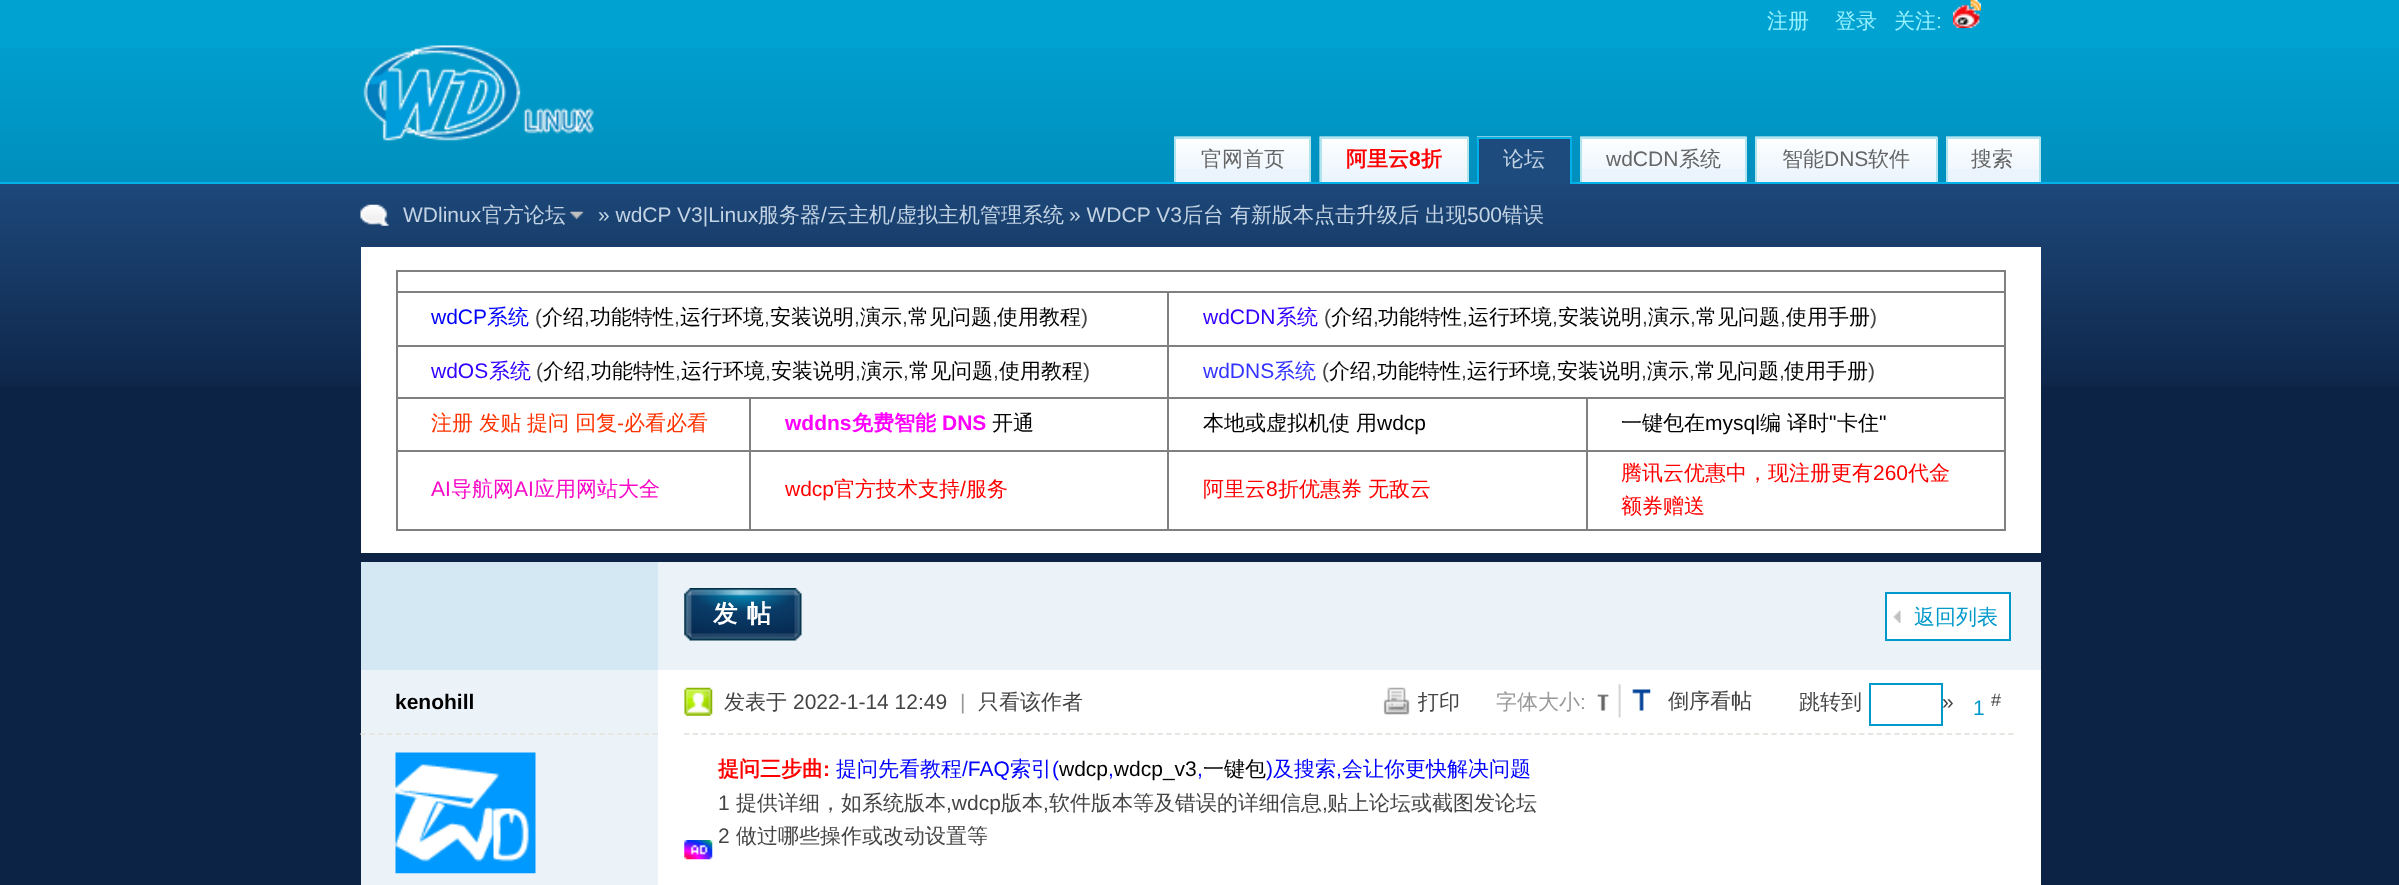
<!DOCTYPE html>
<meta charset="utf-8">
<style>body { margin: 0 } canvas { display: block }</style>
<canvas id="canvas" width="2399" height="885"></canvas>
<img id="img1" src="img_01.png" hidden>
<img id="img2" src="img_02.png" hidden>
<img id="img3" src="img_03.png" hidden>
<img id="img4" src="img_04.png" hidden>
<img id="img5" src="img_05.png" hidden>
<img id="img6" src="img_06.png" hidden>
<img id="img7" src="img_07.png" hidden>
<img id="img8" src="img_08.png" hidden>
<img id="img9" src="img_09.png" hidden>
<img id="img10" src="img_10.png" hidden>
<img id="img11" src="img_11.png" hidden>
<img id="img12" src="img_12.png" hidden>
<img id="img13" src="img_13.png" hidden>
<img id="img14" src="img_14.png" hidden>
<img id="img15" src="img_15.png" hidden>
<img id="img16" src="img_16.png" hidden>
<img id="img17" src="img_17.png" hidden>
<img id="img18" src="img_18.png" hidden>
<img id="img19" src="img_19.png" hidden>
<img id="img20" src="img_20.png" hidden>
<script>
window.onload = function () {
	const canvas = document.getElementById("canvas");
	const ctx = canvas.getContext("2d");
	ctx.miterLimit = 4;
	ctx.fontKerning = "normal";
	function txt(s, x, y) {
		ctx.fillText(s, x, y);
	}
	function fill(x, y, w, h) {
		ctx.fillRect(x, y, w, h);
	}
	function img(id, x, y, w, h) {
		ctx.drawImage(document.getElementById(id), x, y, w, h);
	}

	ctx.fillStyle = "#0D2345";
	fill(0, 0, 2399, 885);
	img("img1", 0, 184, 2399, 202);
	ctx.fillStyle = "#00A2D2";
	fill(0, 0, 2399, 48);
	img("img2", 0, 48, 2399, 134);
	ctx.fillStyle = "#00B2E8";
	fill(0, 182, 2399, 2);
	img("img3", 1953, 0, 28, 28);
	img("img4", 363, 45, 231, 96);
	ctx.fillStyle = "#EBF4FD";
	fill(1176, 169, 133, 13);
	img("img5", 1174, 136, 137, 33);
	ctx.fillStyle = "#B0E4EF";
	fill(1174, 137, 137, 2);
	fill(1309, 137, 2, 45);
	fill(1174, 137, 2, 45);
	img("img6", 1319, 136, 150, 46);
	fill(1320, 137, 148, 2);
	fill(1467, 137, 2, 45);
	fill(1320, 137, 2, 45);
	img("img7", 1477, 136, 95, 1);
	ctx.fillStyle = "#1E4B7E";
	fill(1479, 139, 91, 45);
	ctx.fillStyle = "#00B2E8";
	fill(1477, 137, 95, 2);
	fill(1570, 137, 2, 47);
	fill(1477, 137, 2, 47);
	ctx.fillStyle = "#EBF4FD";
	fill(1582, 169, 163, 13);
	img("img8", 1580, 136, 167, 33);
	ctx.fillStyle = "#B0E4EF";
	fill(1580, 137, 167, 2);
	fill(1745, 137, 2, 45);
	fill(1580, 137, 2, 45);
	img("img9", 1755, 136, 183, 46);
	fill(1755, 137, 182, 2);
	fill(1936, 137, 2, 45);
	fill(1755, 137, 2, 45);
	ctx.fillStyle = "#EBF4FD";
	fill(1948, 169, 91, 13);
	img("img10", 1946, 136, 95, 33);
	ctx.fillStyle = "#B0E4EF";
	fill(1946, 137, 95, 2);
	fill(2039, 137, 2, 45);
	fill(1946, 137, 2, 45);
	img("img11", 360, 204, 29, 22);
	img("img12", 570, 211, 14, 8);
	ctx.fillStyle = "#FFFFFF";
	fill(361, 247, 1680, 306);
	ctx.fillStyle = "#808080";
	fill(396, 270, 1610, 2);
	fill(2004, 270, 2, 260);
	fill(396, 529, 1610, 2);
	fill(396, 270, 2, 260);
	fill(1167, 291, 839, 2);
	fill(1167, 345, 839, 2);
	fill(1586, 397, 420, 2);
	fill(1586, 450, 420, 2);
	fill(1586, 450, 2, 80);
	fill(1167, 450, 420, 2);
	fill(1586, 397, 2, 55);
	fill(1167, 397, 420, 2);
	fill(1167, 450, 2, 80);
	fill(749, 450, 420, 2);
	fill(1167, 397, 2, 55);
	fill(749, 397, 420, 2);
	fill(1167, 345, 2, 54);
	fill(396, 345, 773, 2);
	fill(1167, 291, 2, 56);
	fill(396, 291, 773, 2);
	fill(749, 450, 2, 80);
	fill(396, 450, 355, 2);
	fill(749, 397, 2, 55);
	fill(396, 397, 355, 2);
	ctx.fillStyle = "#FFFFFF";
	fill(658, 670, 1383, 215);
	ctx.fillStyle = "#EBF2F8";
	fill(658, 562, 1383, 108);
	ctx.fillStyle = "#D3E8F2";
	fill(361, 562, 297, 108);
	img("img13", 684, 588, 118, 53);
	ctx.fillStyle = "#FFFFFF";
	fill(1887, 594, 122, 45);
	img("img14", 1893, 610, 8, 13);
	ctx.strokeStyle = "#0099CC";
	ctx.lineWidth = 2;
	ctx.strokeRect(1886, 593, 124, 47);
	ctx.fillStyle = "#EBF2F8";
	fill(361, 670, 297, 215);
	ctx.beginPath();
	ctx.moveTo(360.5, 734);
	ctx.lineTo(658, 734);
	ctx.strokeStyle = "#E6E7E1";
	ctx.lineWidth = 1.8;
	ctx.setLineDash([5.25, 3.6]);
	ctx.stroke();
	img("img15", 395, 752, 141, 122);
	ctx.beginPath();
	ctx.moveTo(684, 734);
	ctx.lineTo(2014, 734);
	ctx.setLineDash([5.25, 3.52]);
	ctx.stroke();
	img("img16", 684, 687, 29, 29);
	img("img17", 1383, 687, 27, 28);
	img("img18", 1597, 684, 24, 34);
	img("img19", 1632, 689, 19, 22);
	ctx.strokeStyle = "#0099CC";
	ctx.lineWidth = 2;
	ctx.setLineDash([]);
	ctx.strokeRect(1870, 684, 72, 41);
	img("img20", 684, 840, 29, 20);
	ctx.font = "500 21px WenQuanYi Zen Hei";
	ctx.fillStyle = "#97F2FF";
	txt("注册", 1767, 28);
	txt("登录", 1835, 28);
	txt("关注", 1894, 28);
	ctx.font = "21px Liberation Sans";
	txt(":", 1936, 28);
	ctx.font = "500 21px WenQuanYi Zen Hei";
	ctx.fillStyle = "#666666";
	txt("官网首页", 1201, 166);
	ctx.font = "bold 21px WenQuanYi Zen Hei";
	ctx.fillStyle = "#FF0000";
	txt("阿里云", 1346, 166);
	ctx.font = "bold 21px Liberation Sans";
	txt("8", 1409, 166);
	ctx.font = "bold 21px WenQuanYi Zen Hei";
	txt("折", 1421, 166);
	ctx.font = "500 21px WenQuanYi Zen Hei";
	ctx.fillStyle = "#C3D3E4";
	txt("论坛", 1503, 166);
	ctx.font = "21px Liberation Sans";
	ctx.fillStyle = "#666666";
	txt("wdCDN", 1606, 166);
	ctx.font = "500 21px WenQuanYi Zen Hei";
	txt("系统", 1679, 166);
	txt("智能", 1782, 166);
	ctx.font = "21px Liberation Sans";
	txt("DNS", 1824, 166);
	ctx.font = "500 21px WenQuanYi Zen Hei";
	txt("软件", 1868, 166);
	txt("搜索", 1971, 166);
	ctx.font = "21px Liberation Sans";
	ctx.fillStyle = "#C3D3E4";
	txt("WDlinux", 403, 222);
	ctx.font = "500 21px WenQuanYi Zen Hei";
	txt("官方论坛", 482, 222);
	ctx.font = "21px Liberation Sans";
	txt("» wdCP V3|Linux", 598, 222);
	ctx.font = "500 21px WenQuanYi Zen Hei";
	txt("服务器", 758, 222);
	ctx.font = "21px Liberation Sans";
	txt("/", 821, 222);
	ctx.font = "500 21px WenQuanYi Zen Hei";
	txt("云主机", 827, 222);
	ctx.font = "21px Liberation Sans";
	txt("/", 890, 222);
	ctx.font = "500 21px WenQuanYi Zen Hei";
	txt("虚拟主机管理系统", 896, 222);
	ctx.font = "21px Liberation Sans";
	txt("» WDCP V3", 1069, 222);
	ctx.font = "500 21px WenQuanYi Zen Hei";
	txt("后台", 1182, 222);
	txt("有新版本点击升级后", 1230, 222);
	txt("出现", 1425, 222);
	ctx.font = "21px Liberation Sans";
	txt("500", 1467, 222);
	ctx.font = "500 21px WenQuanYi Zen Hei";
	txt("错误", 1502, 222);
	ctx.font = "21px Liberation Sans";
	ctx.fillStyle = "#0000FF";
	txt("wdCP", 431, 324);
	ctx.font = "500 21px WenQuanYi Zen Hei";
	txt("系统", 487, 324);
	ctx.font = "21px Liberation Sans";
	ctx.fillStyle = "#444444";
	txt("(", 535, 324);
	ctx.font = "500 21px WenQuanYi Zen Hei";
	ctx.fillStyle = "#000000";
	txt("介绍", 542, 324);
	ctx.font = "21px Liberation Sans";
	ctx.fillStyle = "#444444";
	txt(",", 584, 324);
	ctx.font = "500 21px WenQuanYi Zen Hei";
	ctx.fillStyle = "#000000";
	txt("功能特性", 590, 324);
	ctx.font = "21px Liberation Sans";
	ctx.fillStyle = "#444444";
	txt(",", 674, 324);
	ctx.font = "500 21px WenQuanYi Zen Hei";
	ctx.fillStyle = "#000000";
	txt("运行环境", 680, 324);
	ctx.font = "21px Liberation Sans";
	ctx.fillStyle = "#444444";
	txt(",", 764, 324);
	ctx.font = "500 21px WenQuanYi Zen Hei";
	ctx.fillStyle = "#000000";
	txt("安装说明", 770, 324);
	ctx.font = "21px Liberation Sans";
	ctx.fillStyle = "#444444";
	txt(",", 854, 324);
	ctx.font = "500 21px WenQuanYi Zen Hei";
	ctx.fillStyle = "#000000";
	txt("演示", 860, 324);
	ctx.font = "21px Liberation Sans";
	ctx.fillStyle = "#444444";
	txt(",", 902, 324);
	ctx.font = "500 21px WenQuanYi Zen Hei";
	ctx.fillStyle = "#000000";
	txt("常见问题", 908, 324);
	ctx.font = "21px Liberation Sans";
	ctx.fillStyle = "#444444";
	txt(",", 992, 324);
	ctx.font = "500 21px WenQuanYi Zen Hei";
	ctx.fillStyle = "#000000";
	txt("使用教程", 997, 324);
	ctx.font = "21px Liberation Sans";
	ctx.fillStyle = "#444444";
	txt(")", 1081, 324);
	ctx.fillStyle = "#3300FF";
	txt("wdCDN", 1203, 324);
	ctx.font = "500 21px WenQuanYi Zen Hei";
	txt("系统", 1276, 324);
	ctx.font = "21px Liberation Sans";
	ctx.fillStyle = "#444444";
	txt("(", 1324, 324);
	ctx.font = "500 21px WenQuanYi Zen Hei";
	ctx.fillStyle = "#000000";
	txt("介绍", 1331, 324);
	ctx.font = "21px Liberation Sans";
	ctx.fillStyle = "#444444";
	txt(",", 1373, 324);
	ctx.font = "500 21px WenQuanYi Zen Hei";
	ctx.fillStyle = "#000000";
	txt("功能特性", 1378, 324);
	ctx.font = "21px Liberation Sans";
	ctx.fillStyle = "#444444";
	txt(",", 1462, 324);
	ctx.font = "500 21px WenQuanYi Zen Hei";
	ctx.fillStyle = "#000000";
	txt("运行环境", 1468, 324);
	ctx.font = "21px Liberation Sans";
	ctx.fillStyle = "#444444";
	txt(",", 1552, 324);
	ctx.font = "500 21px WenQuanYi Zen Hei";
	ctx.fillStyle = "#000000";
	txt("安装说明", 1558, 324);
	ctx.font = "21px Liberation Sans";
	ctx.fillStyle = "#444444";
	txt(",", 1642, 324);
	ctx.font = "500 21px WenQuanYi Zen Hei";
	ctx.fillStyle = "#000000";
	txt("演示", 1648, 324);
	ctx.font = "21px Liberation Sans";
	ctx.fillStyle = "#444444";
	txt(",", 1690, 324);
	ctx.font = "500 21px WenQuanYi Zen Hei";
	ctx.fillStyle = "#000000";
	txt("常见问题", 1696, 324);
	ctx.font = "21px Liberation Sans";
	ctx.fillStyle = "#444444";
	txt(",", 1780, 324);
	ctx.font = "500 21px WenQuanYi Zen Hei";
	ctx.fillStyle = "#000000";
	txt("使用手册", 1786, 324);
	ctx.font = "21px Liberation Sans";
	ctx.fillStyle = "#444444";
	txt(")", 1870, 324);
	ctx.fillStyle = "#3300FF";
	txt("wdOS", 431, 378);
	ctx.font = "500 21px WenQuanYi Zen Hei";
	txt("系统", 489, 378);
	ctx.font = "21px Liberation Sans";
	ctx.fillStyle = "#444444";
	txt("(", 536, 378);
	ctx.font = "500 21px WenQuanYi Zen Hei";
	ctx.fillStyle = "#000000";
	txt("介绍", 543, 378);
	ctx.font = "21px Liberation Sans";
	ctx.fillStyle = "#444444";
	txt(",", 585, 378);
	ctx.font = "500 21px WenQuanYi Zen Hei";
	ctx.fillStyle = "#000000";
	txt("功能特性", 591, 378);
	ctx.font = "21px Liberation Sans";
	ctx.fillStyle = "#444444";
	txt(",", 675, 378);
	ctx.font = "500 21px WenQuanYi Zen Hei";
	ctx.fillStyle = "#000000";
	txt("运行环境", 681, 378);
	ctx.font = "21px Liberation Sans";
	ctx.fillStyle = "#444444";
	txt(",", 765, 378);
	ctx.font = "500 21px WenQuanYi Zen Hei";
	ctx.fillStyle = "#000000";
	txt("安装说明", 771, 378);
	ctx.font = "21px Liberation Sans";
	ctx.fillStyle = "#444444";
	txt(",", 855, 378);
	ctx.font = "500 21px WenQuanYi Zen Hei";
	ctx.fillStyle = "#000000";
	txt("演示", 861, 378);
	ctx.font = "21px Liberation Sans";
	ctx.fillStyle = "#444444";
	txt(",", 903, 378);
	ctx.font = "500 21px WenQuanYi Zen Hei";
	ctx.fillStyle = "#000000";
	txt("常见问题", 909, 378);
	ctx.font = "21px Liberation Sans";
	ctx.fillStyle = "#444444";
	txt(",", 993, 378);
	ctx.font = "500 21px WenQuanYi Zen Hei";
	ctx.fillStyle = "#000000";
	txt("使用教程", 999, 378);
	ctx.font = "21px Liberation Sans";
	ctx.fillStyle = "#444444";
	txt(")", 1083, 378);
	ctx.fillStyle = "#3333FF";
	txt("wdDNS", 1203, 378);
	ctx.font = "500 21px WenQuanYi Zen Hei";
	txt("系统", 1274, 378);
	ctx.font = "21px Liberation Sans";
	ctx.fillStyle = "#444444";
	txt("(", 1322, 378);
	ctx.font = "500 21px WenQuanYi Zen Hei";
	ctx.fillStyle = "#000000";
	txt("介绍", 1329, 378);
	ctx.font = "21px Liberation Sans";
	ctx.fillStyle = "#444444";
	txt(",", 1371, 378);
	ctx.font = "500 21px WenQuanYi Zen Hei";
	ctx.fillStyle = "#000000";
	txt("功能特性", 1377, 378);
	ctx.font = "21px Liberation Sans";
	ctx.fillStyle = "#444444";
	txt(",", 1461, 378);
	ctx.font = "500 21px WenQuanYi Zen Hei";
	ctx.fillStyle = "#000000";
	txt("运行环境", 1467, 378);
	ctx.font = "21px Liberation Sans";
	ctx.fillStyle = "#444444";
	txt(",", 1551, 378);
	ctx.font = "500 21px WenQuanYi Zen Hei";
	ctx.fillStyle = "#000000";
	txt("安装说明", 1557, 378);
	ctx.font = "21px Liberation Sans";
	ctx.fillStyle = "#444444";
	txt(",", 1641, 378);
	ctx.font = "500 21px WenQuanYi Zen Hei";
	ctx.fillStyle = "#000000";
	txt("演示", 1647, 378);
	ctx.font = "21px Liberation Sans";
	ctx.fillStyle = "#444444";
	txt(",", 1689, 378);
	ctx.font = "500 21px WenQuanYi Zen Hei";
	ctx.fillStyle = "#000000";
	txt("常见问题", 1695, 378);
	ctx.font = "21px Liberation Sans";
	ctx.fillStyle = "#444444";
	txt(",", 1779, 378);
	ctx.font = "500 21px WenQuanYi Zen Hei";
	ctx.fillStyle = "#000000";
	txt("使用手册", 1784, 378);
	ctx.font = "21px Liberation Sans";
	ctx.fillStyle = "#444444";
	txt(")", 1868, 378);
	ctx.font = "500 21px WenQuanYi Zen Hei";
	ctx.fillStyle = "#FF3300";
	txt("注册 发贴", 431, 430);
	txt("提问 回复", 527, 430);
	ctx.font = "21px Liberation Sans";
	txt("-", 617, 430);
	ctx.font = "500 21px WenQuanYi Zen Hei";
	txt("必看必看", 624, 430);
	ctx.font = "bold 21px Liberation Sans";
	ctx.fillStyle = "#FF00FF";
	txt("wddns", 785, 430);
	ctx.font = "bold 21px WenQuanYi Zen Hei";
	txt("免费智能", 852, 430);
	ctx.font = "bold 21px Liberation Sans";
	txt("DNS", 942, 430);
	ctx.font = "500 21px WenQuanYi Zen Hei";
	ctx.fillStyle = "#000000";
	txt("开通", 992, 430);
	txt("本地或虚拟机使", 1203, 430);
	txt("用", 1356, 430);
	ctx.font = "21px Liberation Sans";
	txt("wdcp", 1377, 430);
	ctx.font = "500 21px WenQuanYi Zen Hei";
	txt("一键包在", 1621, 430);
	ctx.font = "21px Liberation Sans";
	txt("mysql", 1705, 430);
	ctx.font = "500 21px WenQuanYi Zen Hei";
	txt("编", 1760, 430);
	txt("译时", 1787, 430);
	ctx.font = "21px Liberation Sans";
	txt("\"", 1829, 430);
	ctx.font = "500 21px WenQuanYi Zen Hei";
	txt("卡住", 1837, 430);
	ctx.font = "21px Liberation Sans";
	txt("\"", 1879, 430);
	ctx.fillStyle = "#F709C7";
	txt("AI", 431, 496);
	ctx.font = "500 21px WenQuanYi Zen Hei";
	txt("导航网", 451, 496);
	ctx.font = "21px Liberation Sans";
	txt("AI", 514, 496);
	ctx.font = "500 21px WenQuanYi Zen Hei";
	txt("应用网站大全", 534, 496);
	ctx.font = "21px Liberation Sans";
	ctx.fillStyle = "#FF0000";
	txt("wdcp", 785, 496);
	ctx.font = "500 21px WenQuanYi Zen Hei";
	txt("官方技术支持", 834, 496);
	ctx.font = "21px Liberation Sans";
	txt("/", 960, 496);
	ctx.font = "500 21px WenQuanYi Zen Hei";
	txt("服务", 966, 496);
	txt("阿里云", 1203, 496);
	ctx.font = "21px Liberation Sans";
	txt("8", 1266, 496);
	ctx.font = "500 21px WenQuanYi Zen Hei";
	txt("折优惠券", 1278, 496);
	txt("无敌云", 1368, 496);
	txt("腾讯云优惠中，现注册更有", 1621, 480);
	ctx.font = "21px Liberation Sans";
	txt("260", 1873, 480);
	ctx.font = "500 21px WenQuanYi Zen Hei";
	txt("代金", 1908, 480);
	txt("额券赠送", 1621, 513);
	ctx.letterSpacing = "9px";
	ctx.font = "bold 24.5px WenQuanYi Zen Hei";
	ctx.fillStyle = "#FFFFFF";
	txt("发帖", 713, 622);
	ctx.letterSpacing = "0px";
	ctx.font = "500 21px WenQuanYi Zen Hei";
	ctx.fillStyle = "#0099CC";
	txt("返回列表", 1914, 624);
	ctx.font = "bold 21px Liberation Sans";
	ctx.fillStyle = "#000000";
	txt("kenohill", 395, 709);
	ctx.font = "500 21px WenQuanYi Zen Hei";
	ctx.fillStyle = "#444444";
	txt("发表于", 724, 709);
	ctx.font = "21px Liberation Sans";
	txt("2022-1-14 12:49", 793, 709);
	ctx.fillStyle = "#999999";
	txt("|", 960, 709);
	ctx.font = "500 21px WenQuanYi Zen Hei";
	ctx.fillStyle = "#444444";
	txt("只看该作者", 978, 709);
	txt("打印", 1418, 709);
	ctx.fillStyle = "#999999";
	txt("字体大小", 1496, 709);
	ctx.font = "21px Liberation Sans";
	txt(":", 1580, 709);
	ctx.font = "500 21px WenQuanYi Zen Hei";
	ctx.fillStyle = "#444444";
	txt("倒序看帖", 1668, 708);
	txt("跳转到", 1799, 709);
	ctx.font = "21px Liberation Sans";
	txt("»", 1942, 709);
	ctx.fillStyle = "#0099CC";
	txt("1", 1973, 715);
	ctx.font = "18px Liberation Sans";
	ctx.fillStyle = "#444444";
	txt("#", 1991, 706);
	ctx.font = "bold 21px WenQuanYi Zen Hei";
	ctx.fillStyle = "#FF0000";
	txt("提问三步曲", 718, 776);
	ctx.font = "bold 21px Liberation Sans";
	txt(":", 823, 776);
	ctx.font = "500 21px WenQuanYi Zen Hei";
	ctx.fillStyle = "#0000FF";
	txt("提问先看教程", 836, 776);
	ctx.font = "21px Liberation Sans";
	txt("/FAQ", 962, 776);
	ctx.font = "500 21px WenQuanYi Zen Hei";
	txt("索引", 1010, 776);
	ctx.font = "21px Liberation Sans";
	txt("(", 1052, 776);
	ctx.fillStyle = "#000000";
	txt("wdcp wdcp_v3", 1059, 776);
	ctx.font = "500 21px WenQuanYi Zen Hei";
	txt("一键包", 1203, 776);
	ctx.font = "21px Liberation Sans";
	ctx.fillStyle = "#0000FF";
	txt(")", 1266, 776);
	ctx.font = "500 21px WenQuanYi Zen Hei";
	txt("及搜索", 1273, 776);
	txt("会让你更快解决问题", 1342, 776);
	ctx.font = "21px Liberation Sans";
	txt(",", 1108, 776);
	txt(",", 1197, 776);
	txt(",", 1336, 776);
	ctx.fillStyle = "#444444";
	txt("1", 718, 810);
	ctx.font = "500 21px WenQuanYi Zen Hei";
	txt("提供详细，如系统版本", 736, 810);
	ctx.font = "21px Liberation Sans";
	txt(",wdcp", 946, 810);
	ctx.font = "500 21px WenQuanYi Zen Hei";
	txt("版本", 1001, 810);
	ctx.font = "21px Liberation Sans";
	txt(",", 1043, 810);
	ctx.font = "500 21px WenQuanYi Zen Hei";
	txt("软件版本等及错误的详细信息", 1049, 810);
	ctx.font = "21px Liberation Sans";
	txt(",", 1322, 810);
	ctx.font = "500 21px WenQuanYi Zen Hei";
	txt("贴上论坛或截图发论坛", 1327, 810);
	ctx.font = "21px Liberation Sans";
	txt("2", 718, 843);
	ctx.font = "500 21px WenQuanYi Zen Hei";
	txt("做过哪些操作或改动设置等", 736, 843);
};
</script>
